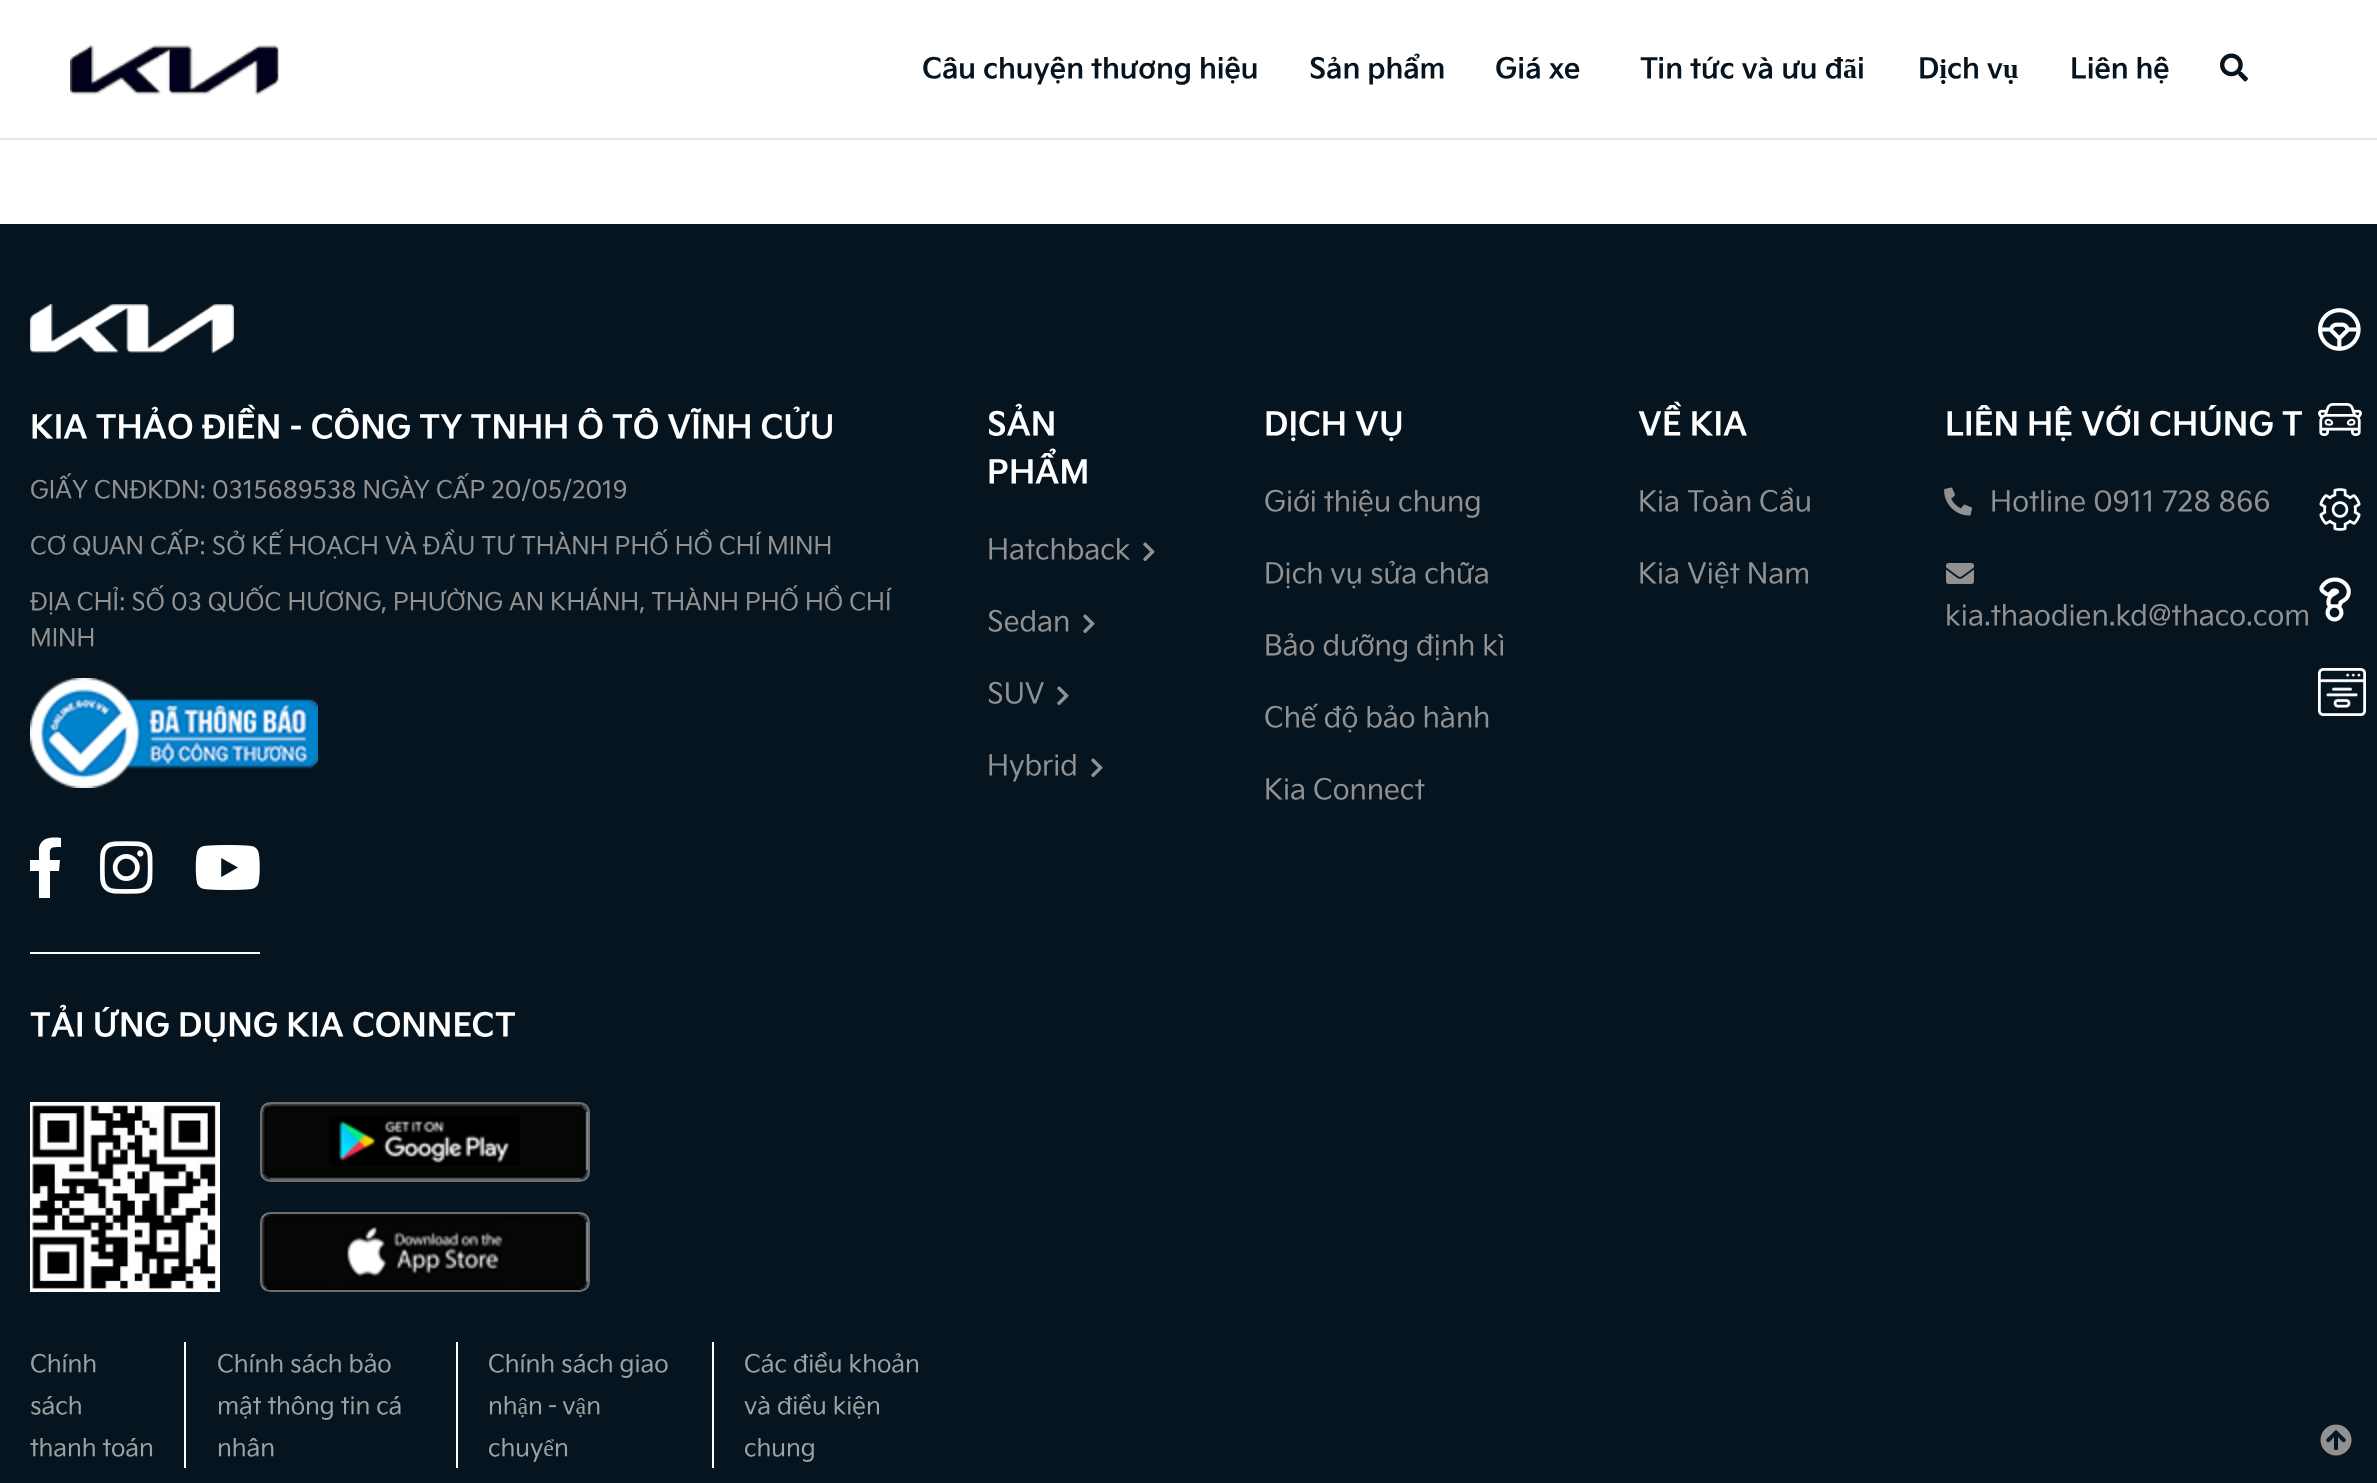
<!DOCTYPE html>
<meta charset="utf-8">
<style>body { margin: 0 } canvas { display: block }</style>
<canvas id="canvas" width="2377" height="1483"></canvas>
<img id="img1" src="img_01.png" hidden>
<img id="img2" src="img_02.png" hidden>
<img id="img3" src="img_03.png" hidden>
<img id="img4" src="img_04.png" hidden>
<img id="img5" src="img_05.png" hidden>
<img id="img6" src="img_06.png" hidden>
<img id="img7" src="img_07.png" hidden>
<img id="img8" src="img_08.png" hidden>
<img id="img9" src="img_09.png" hidden>
<img id="img10" src="img_10.png" hidden>
<img id="img11" src="img_11.png" hidden>
<img id="img12" src="img_12.png" hidden>
<img id="img13" src="img_13.png" hidden>
<img id="img14" src="img_14.png" hidden>
<img id="img15" src="img_15.png" hidden>
<img id="img16" src="img_16.png" hidden>
<img id="img17" src="img_17.png" hidden>
<img id="img18" src="img_18.png" hidden>
<script>
window.onload = function () {
	const canvas = document.getElementById("canvas");
	const ctx = canvas.getContext("2d");
	ctx.miterLimit = 4;
	ctx.fontKerning = "normal";
	function txt(s, x, y) {
		ctx.fillText(s, x, y);
	}
	function fill(x, y, w, h) {
		ctx.fillRect(x, y, w, h);
	}
	function img(id, x, y, w, h) {
		ctx.drawImage(document.getElementById(id), x, y, w, h);
	}

	ctx.fillStyle = "#FFFFFF";
	fill(0, 0, 2377, 1483);
	ctx.fillStyle = "#E5E5E5";
	fill(0, 138, 2377, 2);
	img("img1", 70, 45, 209, 51);
	img("img2", 2220, 53, 28, 29);
	ctx.fillStyle = "#05141F";
	fill(0, 224, 2377, 1259);
	img("img3", 2318, 308, 43, 43);
	img("img4", 2318, 403, 44, 33);
	img("img5", 2319, 488, 42, 43);
	img("img6", 2319, 577, 32, 45);
	img("img7", 2318, 668, 48, 48);
	img("img8", 30, 304, 204, 50);
	img("img9", 30, 678, 288, 110);
	ctx.fillStyle = "#FFFFFF";
	fill(30, 952, 230, 2);
	ctx.beginPath();
	ctx.moveTo(39, 898);
	ctx.lineTo(39, 871);
	ctx.lineTo(30, 871);
	ctx.lineTo(30, 860);
	ctx.lineTo(39, 860);
	ctx.lineTo(39, 848);
	ctx.bezierCurveTo(41, 837, 52, 837, 61, 838);
	ctx.lineTo(61, 847);
	ctx.bezierCurveTo(48, 847, 50, 848, 50, 860);
	ctx.lineTo(60, 860);
	ctx.lineTo(59, 871);
	ctx.lineTo(50, 871);
	ctx.lineTo(50, 898);
	ctx.closePath();
	ctx.fill();
	img("img10", 100, 841, 53, 53);
	img("img11", 195, 845, 65, 45);
	img("img12", 30, 1102, 190, 190);
	ctx.beginPath();
	ctx.roundRect(261, 1103, 328, 78, 9);
	ctx.strokeStyle = "#6D6D6D";
	ctx.lineWidth = 2;
	ctx.stroke();
	img("img13", 262, 1104, 326, 76);
	ctx.beginPath();
	ctx.roundRect(261, 1213, 328, 78, 9);
	ctx.stroke();
	img("img14", 262, 1214, 326, 76);
	fill(184, 1342, 2, 126);
	fill(456, 1342, 2, 126);
	fill(712, 1342, 2, 126);
	img("img15", 1143, 542, 12, 20);
	img("img15", 1083, 614, 12, 20);
	img("img15", 1057, 686, 12, 20);
	img("img15", 1091, 758, 12, 20);
	img("img16", 1944, 487, 28, 29);
	img("img17", 1946, 563, 28, 21);
	img("img18", 2320, 1424, 32, 32);
	ctx.font = "bold 28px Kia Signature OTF";
	ctx.fillStyle = "#05141F";
	txt("Câu chuyện thương hiệu", 922, 78);
	txt("Sản phẩm", 1309, 78);
	txt("Giá xe", 1495, 78);
	txt("Tin tức và ưu đãi", 1640, 78);
	txt("Dịch vụ", 1918, 78);
	txt("Liên hệ", 2070, 78);
	ctx.font = "bold 32px Kia Signature OTF";
	ctx.fillStyle = "#FFFFFF";
	txt("KIA THẢO ĐIỀN - CÔNG TY TNHH Ô TÔ VĨNH CỬU", 30, 438);
	ctx.font = "24px Kia Signature OTF";
	ctx.fillStyle = "#919191";
	txt("GIẤY CNĐKDN: 0315689538 NGÀY CẤP 20/05/2019", 30, 498);
	txt("CƠ QUAN CẤP: SỞ KẾ HOẠCH VÀ ĐẦU TƯ THÀNH PHỐ HỒ CHÍ MINH", 30, 554);
	txt("ĐỊA CHỈ: SỐ 03 QUỐC HƯƠNG, PHƯỜNG AN KHÁNH, THÀNH PHỐ HỒ CHÍ", 30, 610);
	txt("MINH", 30, 646);
	ctx.font = "bold 32px Kia Signature OTF";
	ctx.fillStyle = "#FFFFFF";
	txt("TẢI ỨNG DỤNG KIA CONNECT", 30, 1036);
	ctx.font = "24px Kia Signature OTF";
	ctx.fillStyle = "#9EA1A2";
	txt("Chính", 30, 1372);
	txt("sách", 30, 1414);
	txt("thanh toán", 30, 1456);
	txt("Chính sách bảo", 217, 1372);
	txt("mật thông tin cá", 217, 1414);
	txt("nhân", 217, 1456);
	txt("Chính sách giao", 488, 1372);
	ctx.wordSpacing = "-1px";
	txt("nhận - vận", 488, 1414);
	ctx.wordSpacing = "0px";
	txt("chuyển", 488, 1456);
	txt("Các điều khoản", 744, 1372);
	txt("và điều kiện", 744, 1414);
	txt("chung", 744, 1456);
	ctx.font = "bold 32px Kia Signature OTF";
	ctx.fillStyle = "#FFFFFF";
	txt("SẢN", 987, 435);
	txt("PHẨM", 987, 483);
	ctx.font = "28px Kia Signature OTF";
	ctx.fillStyle = "#919191";
	txt("Hatchback", 987, 559);
	txt("Sedan", 987, 631);
	txt("SUV", 987, 703);
	txt("Hybrid", 987, 775);
	ctx.font = "bold 32px Kia Signature OTF";
	ctx.fillStyle = "#FFFFFF";
	txt("DỊCH VỤ", 1264, 435);
	ctx.font = "28px Kia Signature OTF";
	ctx.fillStyle = "#919191";
	txt("Giới thiệu chung", 1264, 511);
	txt("Dịch vụ sửa chữa", 1264, 583);
	txt("Bảo dưỡng định kì", 1264, 655);
	txt("Chế độ bảo hành", 1264, 727);
	txt("Kia Connect", 1264, 799);
	ctx.font = "bold 32px Kia Signature OTF";
	ctx.fillStyle = "#FFFFFF";
	txt("VỀ KIA", 1638, 435);
	ctx.font = "28px Kia Signature OTF";
	ctx.fillStyle = "#919191";
	txt("Kia Toàn Cầu", 1638, 511);
	txt("Kia Việt Nam", 1638, 583);
	ctx.font = "bold 32px Kia Signature OTF";
	ctx.fillStyle = "#FFFFFF";
	txt("LIÊN HỆ VỚI CHÚNG T", 1945, 435);
	ctx.font = "28px Kia Signature OTF";
	ctx.fillStyle = "#919191";
	txt("Hotline 0911 728 866", 1990, 511);
	txt("kia.thaodien.kd@thaco.com", 1945, 625);
};
</script>
